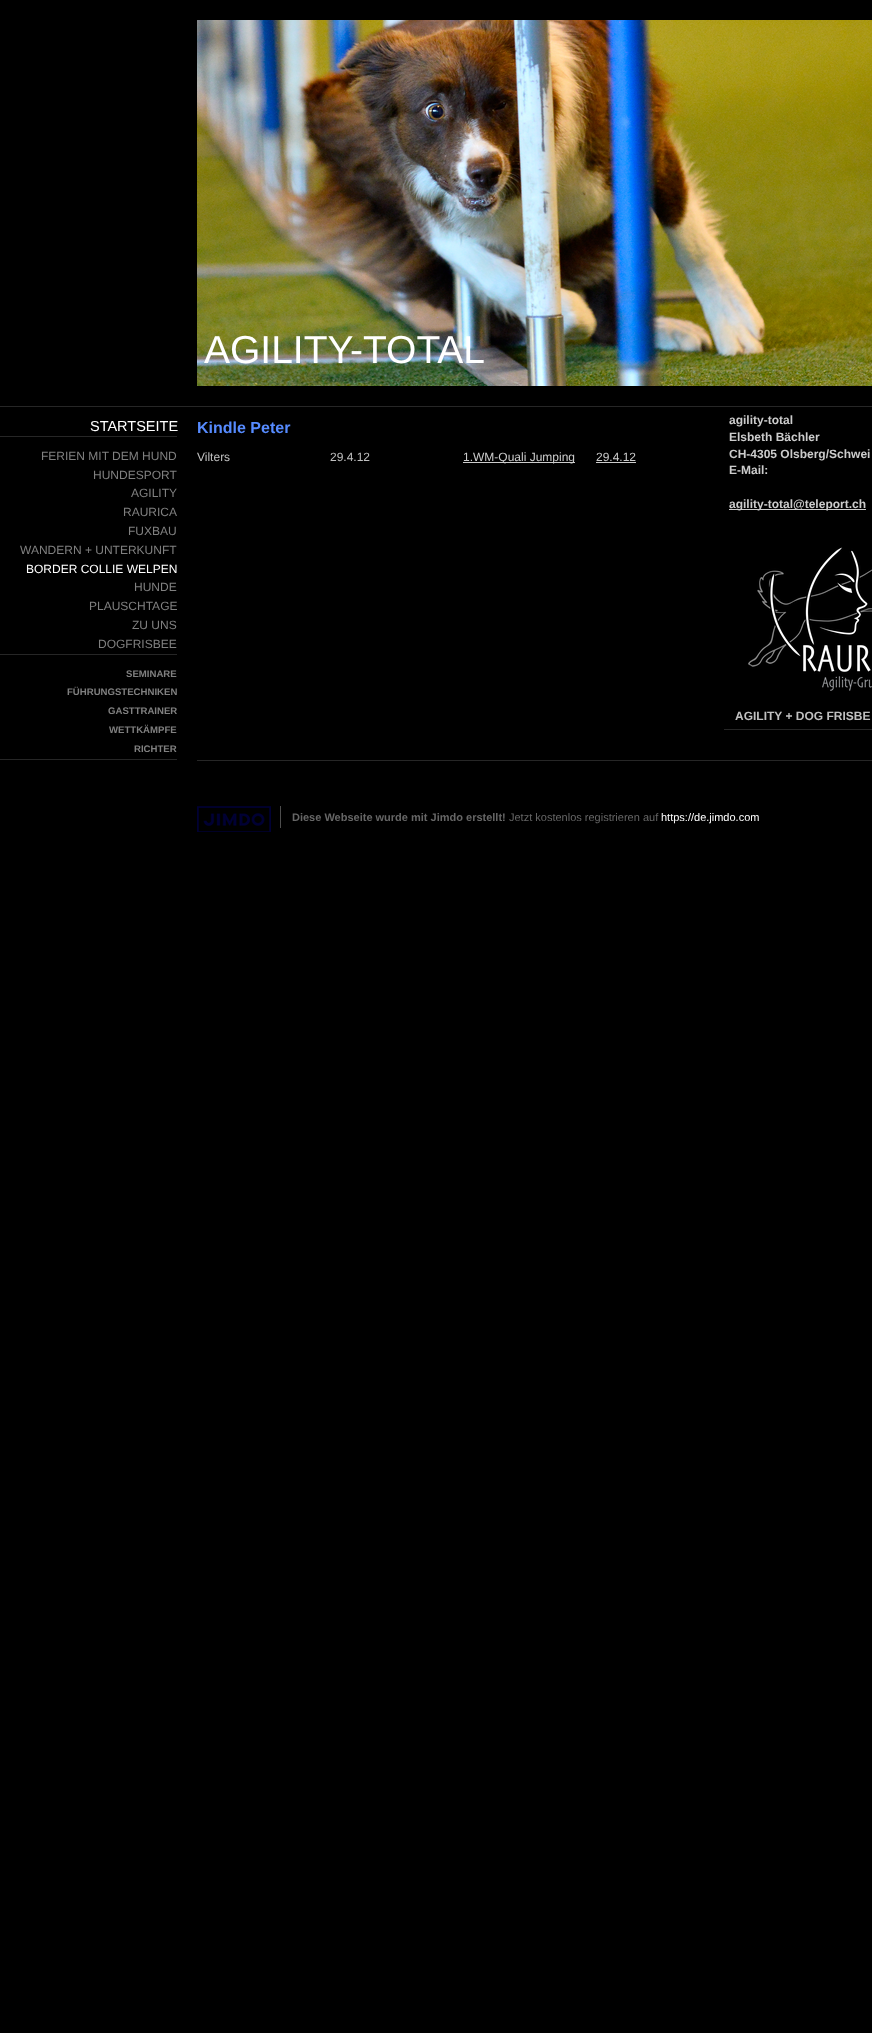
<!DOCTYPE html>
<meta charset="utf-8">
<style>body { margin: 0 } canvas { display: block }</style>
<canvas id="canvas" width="872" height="2033"></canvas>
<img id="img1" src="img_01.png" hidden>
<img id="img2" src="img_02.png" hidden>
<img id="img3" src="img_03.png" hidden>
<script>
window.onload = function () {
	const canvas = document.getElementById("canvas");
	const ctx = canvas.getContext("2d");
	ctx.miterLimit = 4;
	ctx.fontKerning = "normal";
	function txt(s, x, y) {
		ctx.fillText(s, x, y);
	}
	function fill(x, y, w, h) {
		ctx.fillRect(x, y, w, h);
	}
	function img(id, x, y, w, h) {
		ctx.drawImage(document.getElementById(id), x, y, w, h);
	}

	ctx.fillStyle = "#000000";
	fill(0, 0, 872, 2033);
	ctx.fillStyle = "#262626";
	fill(0, 406, 872, 1);
	img("img1", 197, 20, 675, 366);
	fill(0, 436, 177, 1);
	fill(0, 654, 177, 1);
	fill(0, 759, 177, 1);
	ctx.fillStyle = "#CCCCCC";
	fill(463, 462, 112, 1);
	fill(596, 462, 40, 1);
	ctx.fillStyle = "#262626";
	fill(724, 729, 148, 1);
	ctx.fillStyle = "#CCCCCC";
	fill(729, 509, 137, 1);
	img("img2", 748, 547, 124, 144);
	ctx.fillStyle = "#262626";
	fill(197, 760, 675, 1);
	img("img3", 197, 806, 74, 26);
	ctx.fillStyle = "#4D4D4D";
	fill(280, 806, 1, 22);
	ctx.font = "39px Liberation Sans";
	ctx.fillStyle = "#FFFFFF";
	txt("AGILITY-TOTAL", 204, 363);
	ctx.font = "14.5px Liberation Sans";
	txt("STARTSEITE", 90, 431);
	ctx.font = "12px Liberation Sans";
	ctx.fillStyle = "#808080";
	txt("FERIEN MIT DEM HUND", 41, 460);
	txt("HUNDESPORT", 93, 479);
	txt("AGILITY", 131, 497);
	txt("RAURICA", 123, 516);
	txt("FUXBAU", 128, 535);
	txt("WANDERN + UNTERKUNFT", 20, 554);
	ctx.fillStyle = "#FFFFFF";
	txt("BORDER COLLIE WELPEN", 26, 573);
	ctx.fillStyle = "#808080";
	txt("HUNDE", 134, 591);
	txt("PLAUSCHTAGE", 89, 610);
	txt("ZU UNS", 132, 629);
	txt("DOGFRISBEE", 98, 648);
	ctx.font = "bold 9.6px Liberation Sans";
	txt("SEMINARE", 126, 677);
	txt("FÜHRUNGSTECHNIKEN", 67, 695);
	txt("GASTTRAINER", 108, 714);
	txt("WETTKÄMPFE", 109, 733);
	txt("RICHTER", 134, 752);
	ctx.font = "bold 16px Liberation Sans";
	ctx.fillStyle = "#568BFF";
	txt("Kindle Peter", 197, 433);
	ctx.font = "12px Liberation Sans";
	ctx.fillStyle = "#C0C0C0";
	txt("Vilters", 197, 461);
	txt("29.4.12", 330, 461);
	ctx.fillStyle = "#CCCCCC";
	txt("1.WM-Quali Jumping", 463, 461);
	txt("29.4.12", 596, 461);
	ctx.font = "bold 12px Liberation Sans";
	txt("agility-total", 729, 424);
	txt("Elsbeth Bächler", 729, 441);
	txt("CH-4305 Olsberg/Schwei", 729, 458);
	txt("E-Mail:", 729, 474);
	txt("agility-total@teleport.ch", 729, 508);
	ctx.fillStyle = "#C0C0C0";
	txt("AGILITY + DOG FRISBE", 735, 720);
	ctx.font = "bold 11px Liberation Sans";
	ctx.fillStyle = "#666666";
	txt("Diese Webseite wurde mit Jimdo erstellt!", 292, 821);
	ctx.font = "11px Liberation Sans";
	txt("Jetzt kostenlos registrieren auf", 509, 821);
	ctx.fillStyle = "#FFFFFF";
	txt("https://de.jimdo.com", 661, 821);
};
</script>
